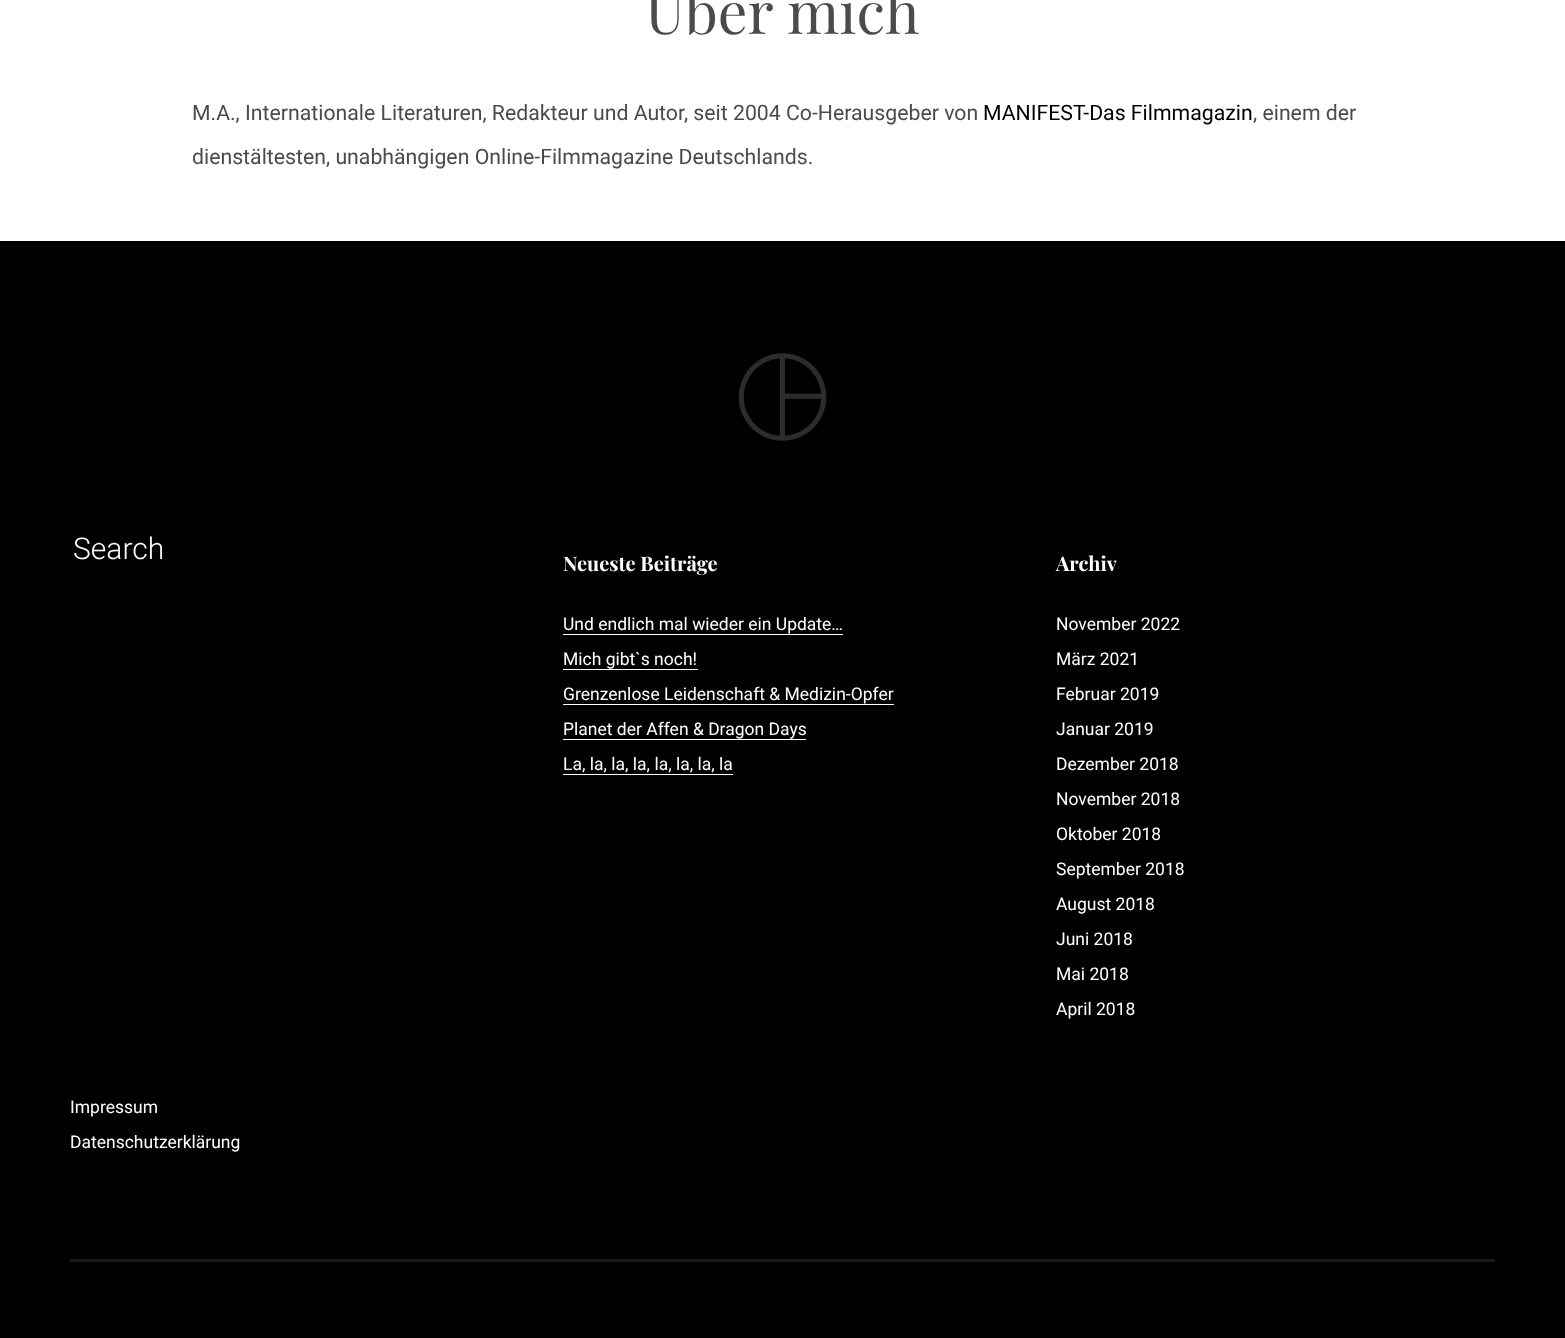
<!DOCTYPE html>
<meta charset="utf-8">
<style>body { margin: 0 } canvas { display: block }</style>
<canvas id="canvas" width="1565" height="1338"></canvas>
<img id="img1" src="img_01.png" hidden>
<script>
window.onload = function () {
	const canvas = document.getElementById("canvas");
	const ctx = canvas.getContext("2d");
	ctx.miterLimit = 4;
	ctx.fontKerning = "normal";
	function txt(s, x, y) {
		ctx.fillText(s, x, y);
	}
	function fill(x, y, w, h) {
		ctx.fillRect(x, y, w, h);
	}
	function img(id, x, y, w, h) {
		ctx.drawImage(document.getElementById(id), x, y, w, h);
	}

	ctx.fillStyle = "#FFFFFF";
	fill(0, 0, 1565, 1338);
	ctx.fillStyle = "#000000";
	fill(0, 241, 1565, 1097);
	img("img1", 738, 353, 89, 88);
	ctx.fillStyle = "#1A1A1A";
	fill(70, 1259, 1425, 3);
	ctx.fillStyle = "#FFFFFF";
	fill(563, 634, 280, 1);
	fill(563, 669, 135, 1);
	fill(563, 704, 331, 1);
	fill(563, 739, 243, 1);
	fill(563, 774, 170, 1);
	ctx.font = "58.75px Playfair Display";
	ctx.fillStyle = "#4B4B4B";
	txt("Über mich", 645, 34);
	ctx.font = "21.25px Roboto";
	txt("M.A., Internationale Literaturen, Redakteur und Autor, seit 2004 Co-Herausgeber von", 192, 120);
	ctx.fillStyle = "#000000";
	txt("MANIFEST-Das Filmmagazin", 983, 120);
	ctx.fillStyle = "#4B4B4B";
	txt(", einem der", 1253, 120);
	txt("dienstältesten, unabhängigen Online-Filmmagazine Deutschlands.", 192, 164);
	ctx.font = "300 30px Roboto";
	ctx.fillStyle = "#FFFFFF";
	txt("Search", 73, 559);
	ctx.font = "bold 20px Playfair Display";
	txt("Neueste Beiträge", 563, 571);
	ctx.font = "17.5px Roboto";
	txt("Und endlich mal wieder ein Update…", 563, 630);
	txt("Mich gibt`s noch!", 563, 665);
	txt("Grenzenlose Leidenschaft & Medizin-Opfer", 563, 700);
	txt("Planet der Affen & Dragon Days", 563, 735);
	txt("La, la, la, la, la, la, la, la", 563, 770);
	ctx.font = "bold 20px Playfair Display";
	txt("Archiv", 1056, 571);
	ctx.font = "17.5px Roboto";
	txt("November 2022", 1056, 630);
	txt("März 2021", 1056, 665);
	txt("Februar 2019", 1056, 700);
	txt("Januar 2019", 1056, 735);
	txt("Dezember 2018", 1056, 770);
	txt("November 2018", 1056, 805);
	txt("Oktober 2018", 1056, 840);
	txt("September 2018", 1056, 875);
	txt("August 2018", 1056, 910);
	txt("Juni 2018", 1056, 945);
	txt("Mai 2018", 1056, 980);
	txt("April 2018", 1056, 1015);
	txt("Impressum", 70, 1113);
	txt("Datenschutzerklärung", 70, 1148);
};
</script>
